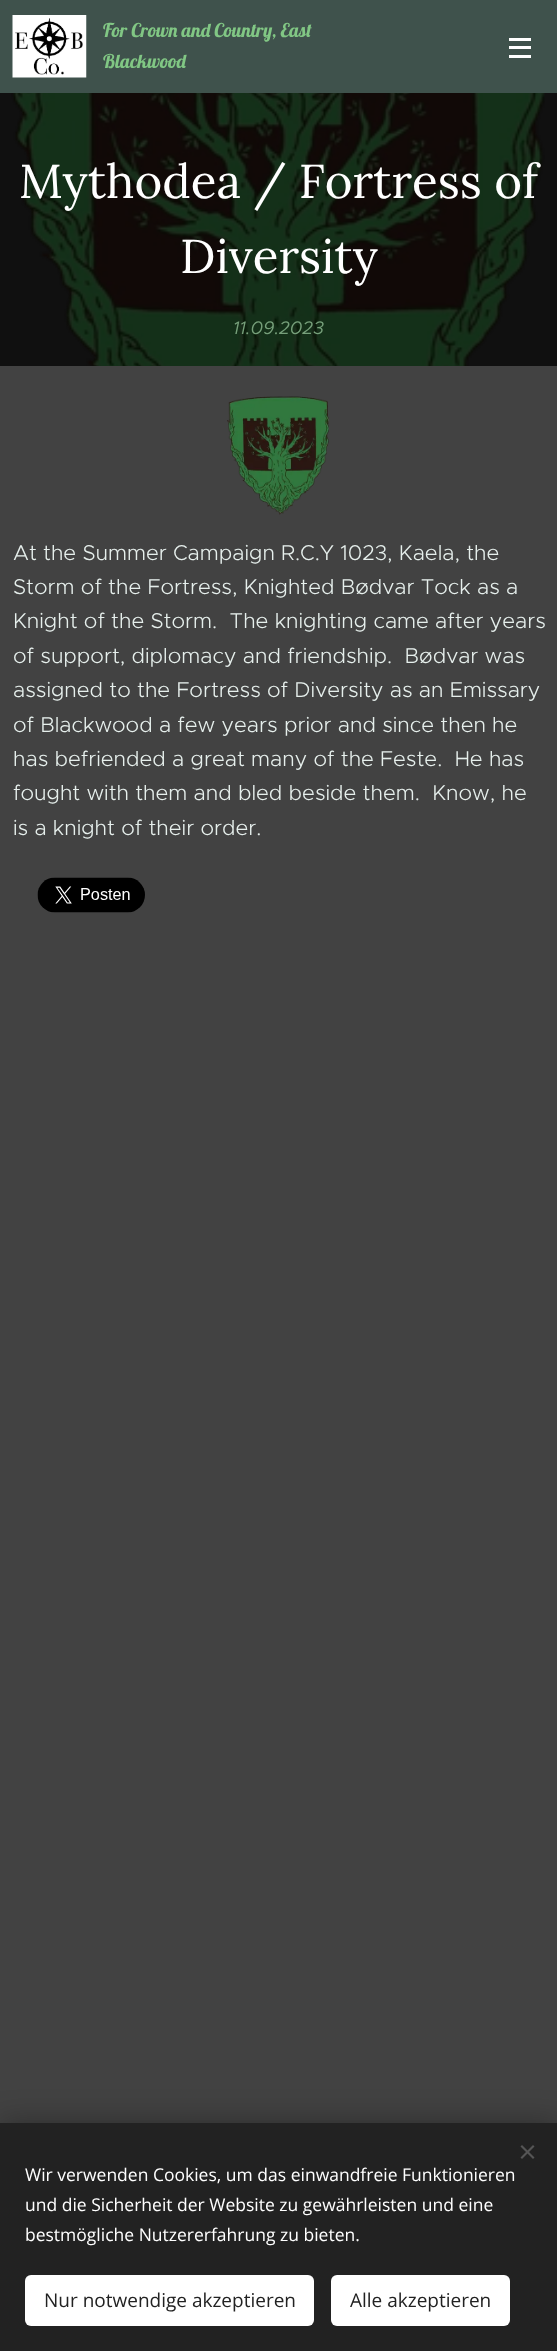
<!DOCTYPE html>
<meta charset="utf-8">
<style>body { margin: 0 } canvas { display: block }</style>
<canvas id="canvas" width="557" height="2351"></canvas>
<img id="img1" src="img_01.png" hidden>
<img id="img2" src="img_02.png" hidden>
<img id="img3" src="img_03.png" hidden>
<img id="img4" src="img_04.png" hidden>
<script>
window.onload = function () {
	const canvas = document.getElementById("canvas");
	const ctx = canvas.getContext("2d");
	ctx.miterLimit = 4;
	ctx.fontKerning = "none";
	function txt(s, x, y) {
		ctx.fillText(s, x, y);
	}
	function fill(x, y, w, h) {
		ctx.fillRect(x, y, w, h);
	}
	function round(x, y, w, h, r) {
		ctx.beginPath();
		ctx.roundRect(x, y, w, h, r);
		ctx.fill();
	}
	function img(id, x, y, w, h) {
		ctx.drawImage(document.getElementById(id), x, y, w, h);
	}

	ctx.fillStyle = "#101010";
	fill(0, 0, 557, 2351);
	ctx.fillStyle = "#3F524C";
	fill(0, 0, 557, 93);
	img("img1", 12, 15, 75, 63);
	ctx.fillStyle = "#FFFFFF";
	fill(509, 46, 22, 3);
	fill(509, 38, 22, 3);
	fill(509, 55, 22, 3);
	img("img2", 11, 93, 534, 273);
	ctx.fillStyle = "#424242";
	fill(0, 366, 557, 1757);
	img("img3", 227, 396, 102, 119);
	img("img4", 37, 877, 108, 36);
	ctx.fillStyle = "rgba(0, 0, 0, 0.33)";
	ctx.filter = "blur(15.5px)";
	ctx.beginPath();
	ctx.rect(0, 2123, 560, 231);
	ctx.fill();
	ctx.filter = "none";
	ctx.fillStyle = "#222222";
	fill(0, 2123, 557, 228);
	ctx.fillStyle = "#555555";
	ctx.beginPath();
	ctx.moveTo(520.5, 2157.5);
	ctx.lineTo(533, 2145);
	ctx.lineTo(534.5, 2146.5);
	ctx.lineTo(522, 2159);
	ctx.closePath();
	ctx.fill();
	ctx.beginPath();
	ctx.moveTo(522, 2145);
	ctx.lineTo(534.5, 2157.5);
	ctx.lineTo(533, 2159);
	ctx.lineTo(520.5, 2146.5);
	ctx.closePath();
	ctx.fill();
	ctx.fillStyle = "#FFFFFF";
	round(25, 2275, 289, 51, 6);
	round(331, 2275, 179, 51, 6);
	ctx.font = "19px Lobster";
	ctx.fillStyle = "#81C784";
	txt("For Crown and Country, East", 103, 37);
	txt("Blackwood", 103, 68);
	ctx.font = "47.5px Lora";
	ctx.fillStyle = "#FFFFFF";
	txt("Mythodea / Fortress of", 19, 198);
	txt("Diversity", 180, 273);
	ctx.font = "italic 18.25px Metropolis";
	ctx.fillStyle = "#769F7A";
	txt("11.09.2023", 233, 334);
	ctx.font = "300 21.5px Metropolis";
	ctx.fillStyle = "#E6EFEC";
	txt("At the Summer Campaign R.C.Y 1023, Kaela, the", 13, 560);
	txt("Storm of the Fortress, Knighted Bødvar Tock as a", 13, 594);
	txt("Knight of the Storm.  The knighting came after years", 13, 628);
	txt("of support, diplomacy and friendship.  Bødvar was", 13, 663);
	txt("assigned to the Fortress of Diversity as an Emissary", 13, 697);
	txt("of Blackwood a few years prior and since then he", 13, 732);
	txt("has befriended a great many of the Feste.  He has", 13, 766);
	txt("fought with them and bled beside them.  Know, he", 13, 800);
	txt("is a knight of their order.", 13, 835);
	ctx.font = "17.5px Open Sans";
	ctx.fillStyle = "#FFFFFF";
	txt("Wir verwenden Cookies, um das einwandfreie Funktionieren", 25, 2181);
	txt("und die Sicherheit der Website zu gewährleisten und eine", 25, 2211);
	txt("bestmögliche Nutzererfahrung zu bieten.", 25, 2241);
	ctx.font = "19px Open Sans";
	ctx.fillStyle = "#222222";
	txt("Nur notwendige akzeptieren", 44, 2307);
	txt("Alle akzeptieren", 350, 2307);
};
</script>
